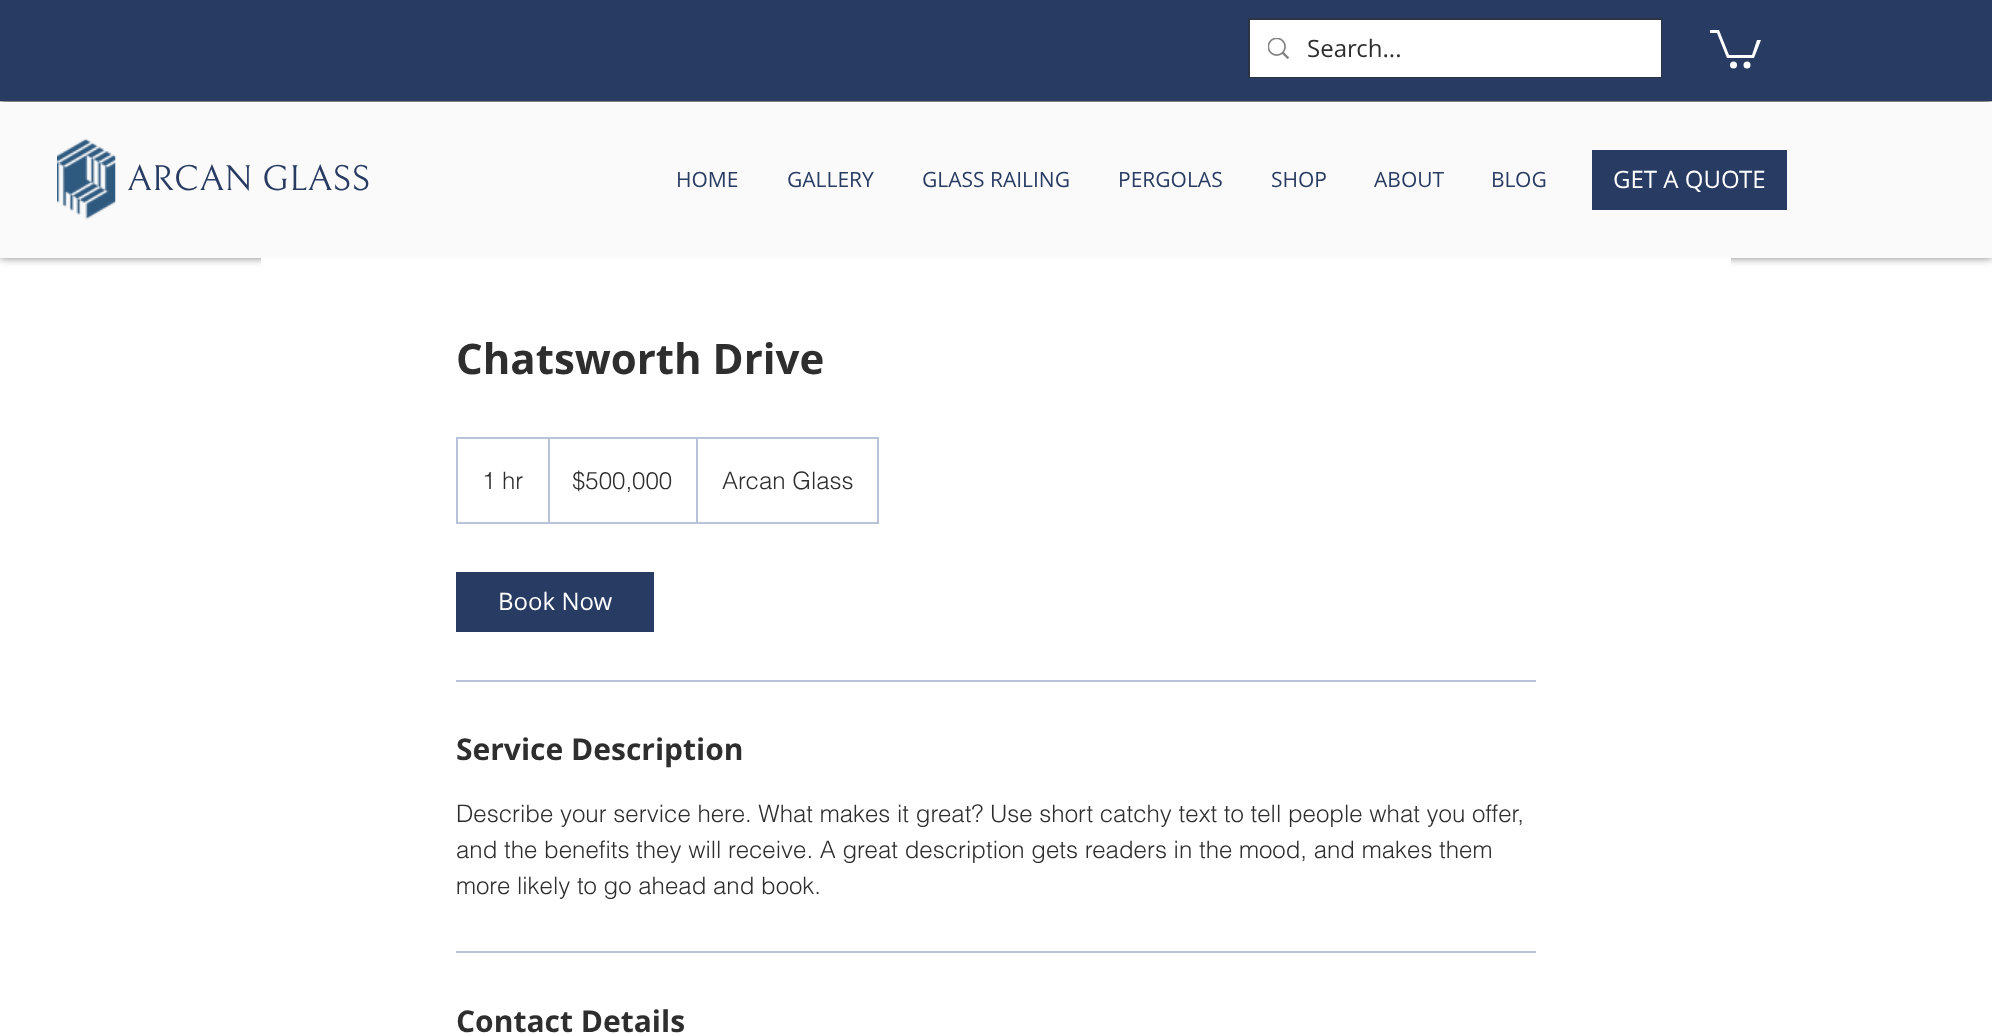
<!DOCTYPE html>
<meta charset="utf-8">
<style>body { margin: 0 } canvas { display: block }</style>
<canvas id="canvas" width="1992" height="1035"></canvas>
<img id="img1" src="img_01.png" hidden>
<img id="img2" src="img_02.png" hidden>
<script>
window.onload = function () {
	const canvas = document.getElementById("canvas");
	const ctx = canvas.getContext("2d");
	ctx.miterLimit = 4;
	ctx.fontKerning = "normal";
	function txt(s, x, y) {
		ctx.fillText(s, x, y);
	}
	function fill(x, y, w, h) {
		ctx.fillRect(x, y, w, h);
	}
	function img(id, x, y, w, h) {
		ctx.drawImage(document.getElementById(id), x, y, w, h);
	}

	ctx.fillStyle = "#FFFFFF";
	fill(0, 0, 1992, 1035);
	ctx.fillStyle = "rgba(0, 0, 0, 0.5)";
	ctx.filter = "blur(4px)";
	ctx.beginPath();
	ctx.rect(0, 0, 1992, 258);
	ctx.fill();
	ctx.filter = "none";
	ctx.fillStyle = "#283B62";
	fill(0, 0, 1992, 101);
	ctx.strokeStyle = "#2C3343";
	ctx.lineWidth = 2;
	ctx.strokeRect(1249, 19, 412, 58);
	ctx.fillStyle = "#FFFFFF";
	fill(1250, 20, 411, 57);
	img("img1", 1268, 38, 21, 21);
	ctx.beginPath();
	ctx.moveTo(1761, 40);
	ctx.lineTo(1754, 58);
	ctx.lineTo(1727, 58);
	ctx.lineTo(1717, 33);
	ctx.lineTo(1710, 33);
	ctx.lineTo(1710, 30);
	ctx.lineTo(1719, 30);
	ctx.lineTo(1729, 55);
	ctx.lineTo(1752, 55);
	ctx.lineTo(1757, 40);
	ctx.fill();
	ctx.beginPath();
	ctx.arc(1747, 65, 3.5, 0, Math.PI * 2);
	ctx.fill();
	ctx.beginPath();
	ctx.arc(1733.5, 65, 3.5, 0, Math.PI * 2);
	ctx.fill();
	ctx.fillStyle = "#FAFAFA";
	fill(0, 102, 1992, 156);
	img("img2", 57, 139, 59, 81);
	ctx.fillStyle = "#283B62";
	fill(1592, 150, 195, 60);
	ctx.fillStyle = "#FFFFFF";
	fill(261, 258, 1470, 8);
	ctx.strokeStyle = "#B8C2D8";
	ctx.strokeRect(457, 438, 421, 85);
	ctx.fillStyle = "#B8C2D8";
	fill(548, 438, 2, 84);
	fill(696, 438, 2, 84);
	ctx.fillStyle = "#283B62";
	fill(456, 572, 198, 60);
	ctx.fillStyle = "#B8C2D8";
	fill(456, 680, 1080, 2);
	fill(456, 951, 1080, 2);
	ctx.font = "24px Open Sans";
	ctx.fillStyle = "#2F2E2E";
	txt("Search...", 1307, 57);
	ctx.font = "36px Bellefair";
	ctx.fillStyle = "#283B62";
	txt("ARCAN GLASS", 127, 190);
	ctx.font = "21px Open Sans";
	txt("HOME", 676, 187);
	txt("GALLERY", 787, 187);
	txt("GLASS RAILING", 922, 187);
	txt("PERGOLAS", 1118, 187);
	txt("SHOP", 1271, 187);
	txt("ABOUT", 1374, 187);
	txt("BLOG", 1491, 187);
	ctx.font = "24px Open Sans";
	ctx.fillStyle = "#FFFFFF";
	txt("GET A QUOTE", 1613, 188);
	ctx.font = "bold 42px Open Sans";
	ctx.fillStyle = "#2F2E2E";
	txt("Chatsworth Drive", 456, 374);
	ctx.font = "300 24px helvetica";
	txt("1 hr", 482, 489);
	txt("$500,000", 572, 489);
	txt("Arcan Glass", 722, 489);
	ctx.font = "24px Open Sans";
	ctx.fillStyle = "#FFFFFF";
	txt("Book Now", 498, 610);
	ctx.font = "bold 30px Open Sans";
	ctx.fillStyle = "#2F2E2E";
	txt("Service Description", 456, 760);
	ctx.font = "300 24px helvetica";
	txt("Describe your service here. What makes it great? Use short catchy text to tell people what you offer,", 456, 822);
	txt("and the benefits they will receive. A great description gets readers in the mood, and makes them", 456, 858);
	txt("more likely to go ahead and book.", 456, 894);
	ctx.font = "bold 30px Open Sans";
	txt("Contact Details", 456, 1032);
};
</script>
